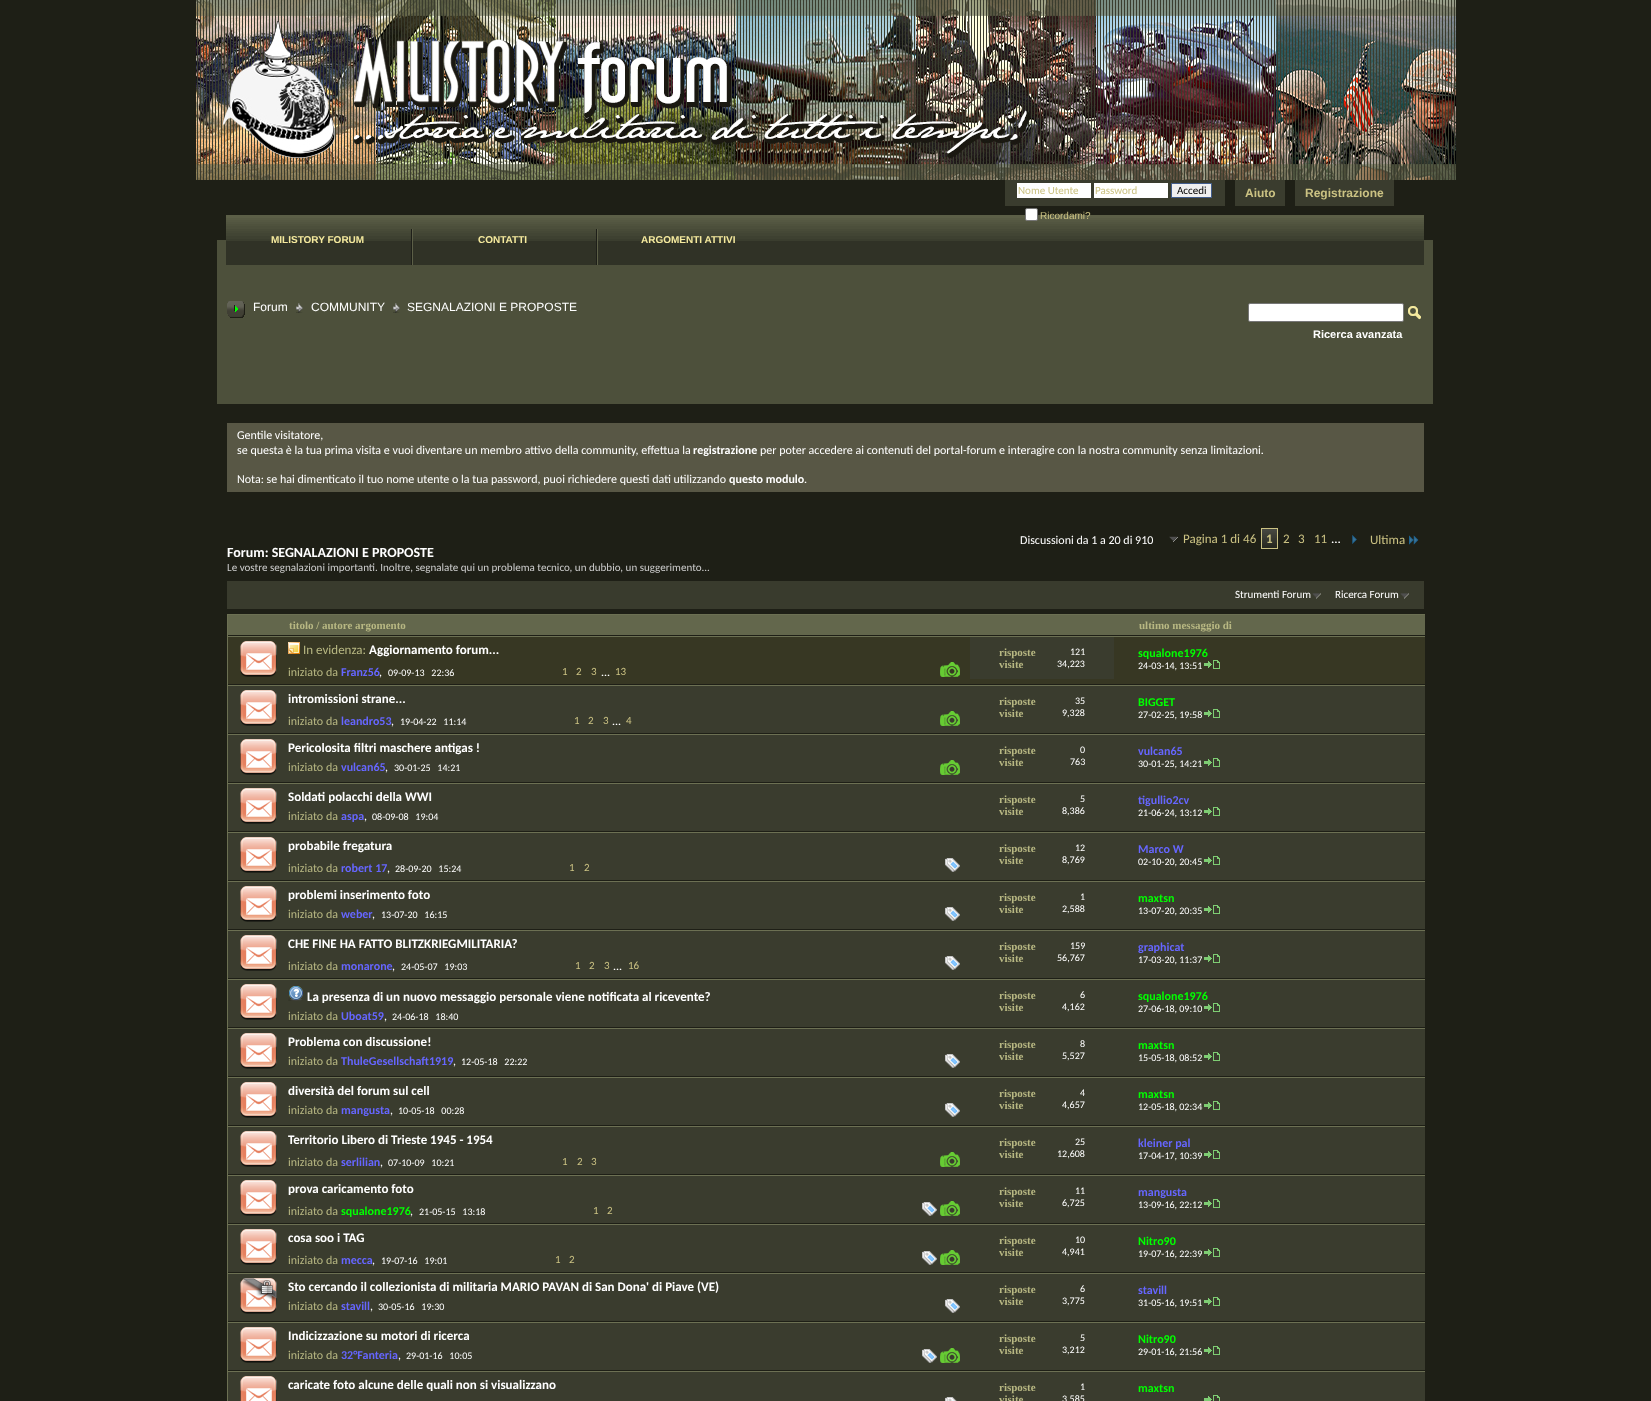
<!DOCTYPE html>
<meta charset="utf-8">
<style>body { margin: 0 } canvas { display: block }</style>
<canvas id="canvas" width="1651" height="1401"></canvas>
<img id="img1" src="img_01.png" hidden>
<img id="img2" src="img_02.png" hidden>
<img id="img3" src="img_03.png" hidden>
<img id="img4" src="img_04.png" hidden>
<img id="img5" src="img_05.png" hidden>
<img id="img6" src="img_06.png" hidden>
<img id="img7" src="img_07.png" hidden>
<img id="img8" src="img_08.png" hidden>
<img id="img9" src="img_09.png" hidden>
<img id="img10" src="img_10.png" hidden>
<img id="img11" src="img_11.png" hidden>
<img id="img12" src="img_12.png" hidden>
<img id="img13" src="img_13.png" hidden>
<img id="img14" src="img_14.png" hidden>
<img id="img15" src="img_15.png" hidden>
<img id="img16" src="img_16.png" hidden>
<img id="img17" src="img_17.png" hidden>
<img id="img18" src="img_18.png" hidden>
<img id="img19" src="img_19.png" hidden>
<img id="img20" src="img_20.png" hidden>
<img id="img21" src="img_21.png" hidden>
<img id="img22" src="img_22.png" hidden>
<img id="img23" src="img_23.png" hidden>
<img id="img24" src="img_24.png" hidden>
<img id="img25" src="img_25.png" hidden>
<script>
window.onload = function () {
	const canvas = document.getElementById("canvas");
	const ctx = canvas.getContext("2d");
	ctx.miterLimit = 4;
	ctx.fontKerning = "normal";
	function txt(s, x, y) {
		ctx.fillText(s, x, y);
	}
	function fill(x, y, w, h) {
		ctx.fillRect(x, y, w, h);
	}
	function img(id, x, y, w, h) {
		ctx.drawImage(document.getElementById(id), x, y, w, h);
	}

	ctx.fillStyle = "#1E1F16";
	fill(0, 0, 1651, 1401);
	img("img1", 196, 0, 1260, 180);
	ctx.fillStyle = "#3A3C2E";
	fill(1005, 180, 220, 26);
	ctx.fillStyle = "#FFFFFF";
	fill(1017, 183, 74, 15);
	fill(1094, 183, 74, 15);
	ctx.fillStyle = "#EFEFEF";
	ctx.beginPath();
	ctx.rect(1171.5, 183.5, 40, 14);
	ctx.fill();
	ctx.strokeStyle = "#415D8D";
	ctx.stroke();
	ctx.fillStyle = "#4D503B";
	fill(217, 240, 1216, 164);
	img("img2", 226, 215, 1198, 26);
	ctx.fillStyle = "#FFFFFF";
	ctx.beginPath();
	ctx.roundRect(1025.5, 208.5, 12, 12, 1.5);
	ctx.fill();
	ctx.strokeStyle = "#767676";
	ctx.stroke();
	ctx.fillStyle = "#3A3C2E";
	fill(1235, 180, 50, 26);
	fill(1295, 180, 99, 26);
	ctx.fillStyle = "#303226";
	fill(226, 241, 1198, 24);
	img("img3", 243, 215, 150, 26);
	img("img4", 411, 229, 2, 36);
	img("img3", 428, 215, 150, 26);
	img("img4", 596, 229, 2, 36);
	img("img3", 613, 215, 150, 26);
	img("img5", 227, 301, 18, 17);
	img("img6", 296, 303, 7, 10);
	img("img6", 393, 303, 7, 10);
	ctx.fillStyle = "#FFFFFF";
	ctx.beginPath();
	ctx.roundRect(1248.5, 303.5, 155, 18, 1.5);
	ctx.fill();
	ctx.stroke();
	img("img7", 1408, 306, 13, 14);
	ctx.fillStyle = "#585745";
	fill(227, 423, 1197, 69);
	img("img8", 1169, 536, 9, 6);
	img("img9", 1262, 529, 15, 19);
	ctx.strokeStyle = "#CBC283";
	ctx.strokeRect(1261.5, 528.5, 16, 20);
	img("img10", 1352, 535, 5, 9);
	img("img11", 1409, 535, 10, 10);
	ctx.fillStyle = "#393B2D";
	fill(227, 581, 1197, 28);
	img("img12", 1312, 593, 9, 6);
	img("img12", 1400, 593, 9, 6);
	ctx.fillStyle = "#63674C";
	fill(228, 615, 1197, 20);
	ctx.fillStyle = "#6C7053";
	fill(227, 614, 1199, 1);
	ctx.fillStyle = "#1E1E16";
	fill(1425, 614, 1, 1);
	ctx.fillStyle = "#6C7053";
	fill(227, 614, 1, 22);
	ctx.fillStyle = "#373723";
	fill(228, 637, 1197, 47);
	ctx.fillStyle = "#6C7053";
	fill(227, 636, 1199, 1);
	ctx.fillStyle = "#1E1E16";
	fill(1425, 636, 1, 1);
	ctx.fillStyle = "#6C7053";
	fill(227, 636, 1, 49);
	img("img13", 240, 641, 37, 36);
	img("img14", 288, 642, 12, 12);
	img("img15", 940, 662, 20, 15);
	ctx.fillStyle = "#3A3C2E";
	fill(970, 637, 144, 42);
	img("img16", 1204, 660, 16, 9);
	fill(228, 686, 1197, 47);
	ctx.fillStyle = "#6C7053";
	fill(227, 685, 1199, 1);
	ctx.fillStyle = "#1E1E16";
	fill(1425, 685, 1, 1);
	ctx.fillStyle = "#6C7053";
	fill(227, 685, 1, 49);
	img("img17", 240, 690, 37, 36);
	img("img18", 940, 711, 20, 15);
	img("img19", 1204, 709, 16, 9);
	ctx.fillStyle = "#3A3C2E";
	fill(228, 735, 1197, 47);
	ctx.fillStyle = "#6C7053";
	fill(227, 734, 1199, 1);
	ctx.fillStyle = "#1E1E16";
	fill(1425, 734, 1, 1);
	ctx.fillStyle = "#6C7053";
	fill(227, 734, 1, 49);
	img("img17", 240, 739, 37, 36);
	img("img18", 940, 760, 20, 15);
	img("img19", 1204, 758, 16, 9);
	ctx.fillStyle = "#3A3C2E";
	fill(228, 784, 1197, 47);
	ctx.fillStyle = "#6C7053";
	fill(227, 783, 1199, 1);
	ctx.fillStyle = "#1E1E16";
	fill(1425, 783, 1, 1);
	ctx.fillStyle = "#6C7053";
	fill(227, 783, 1, 49);
	img("img17", 240, 788, 37, 36);
	img("img19", 1204, 807, 16, 9);
	ctx.fillStyle = "#3A3C2E";
	fill(228, 833, 1197, 47);
	ctx.fillStyle = "#6C7053";
	fill(227, 832, 1199, 1);
	ctx.fillStyle = "#1E1E16";
	fill(1425, 832, 1, 1);
	ctx.fillStyle = "#6C7053";
	fill(227, 832, 1, 49);
	img("img17", 240, 837, 37, 36);
	img("img20", 945, 858, 15, 14);
	img("img19", 1204, 856, 16, 9);
	ctx.fillStyle = "#3A3C2E";
	fill(228, 882, 1197, 47);
	ctx.fillStyle = "#6C7053";
	fill(227, 881, 1199, 1);
	ctx.fillStyle = "#1E1E16";
	fill(1425, 881, 1, 1);
	ctx.fillStyle = "#6C7053";
	fill(227, 881, 1, 49);
	img("img17", 240, 886, 37, 36);
	img("img20", 945, 907, 15, 14);
	img("img19", 1204, 905, 16, 9);
	ctx.fillStyle = "#3A3C2E";
	fill(228, 931, 1197, 47);
	ctx.fillStyle = "#6C7053";
	fill(227, 930, 1199, 1);
	ctx.fillStyle = "#1E1E16";
	fill(1425, 930, 1, 1);
	ctx.fillStyle = "#6C7053";
	fill(227, 930, 1, 49);
	img("img17", 240, 935, 37, 36);
	img("img20", 945, 956, 15, 14);
	img("img19", 1204, 954, 16, 9);
	ctx.fillStyle = "#3A3C2E";
	fill(228, 980, 1197, 47);
	ctx.fillStyle = "#6C7053";
	fill(227, 979, 1199, 1);
	ctx.fillStyle = "#1E1E16";
	fill(1425, 979, 1, 1);
	ctx.fillStyle = "#6C7053";
	fill(227, 979, 1, 49);
	img("img17", 240, 984, 37, 36);
	img("img21", 288, 986, 15, 15);
	img("img19", 1204, 1003, 16, 9);
	ctx.fillStyle = "#3A3C2E";
	fill(228, 1029, 1197, 47);
	ctx.fillStyle = "#6C7053";
	fill(227, 1028, 1199, 1);
	ctx.fillStyle = "#1E1E16";
	fill(1425, 1028, 1, 1);
	ctx.fillStyle = "#6C7053";
	fill(227, 1028, 1, 49);
	img("img17", 240, 1033, 37, 36);
	img("img20", 945, 1054, 15, 14);
	img("img19", 1204, 1052, 16, 9);
	ctx.fillStyle = "#3A3C2E";
	fill(228, 1078, 1197, 47);
	ctx.fillStyle = "#6C7053";
	fill(227, 1077, 1199, 1);
	ctx.fillStyle = "#1E1E16";
	fill(1425, 1077, 1, 1);
	ctx.fillStyle = "#6C7053";
	fill(227, 1077, 1, 49);
	img("img17", 240, 1082, 37, 36);
	img("img20", 945, 1103, 15, 14);
	img("img19", 1204, 1101, 16, 9);
	ctx.fillStyle = "#3A3C2E";
	fill(228, 1127, 1197, 47);
	ctx.fillStyle = "#6C7053";
	fill(227, 1126, 1199, 1);
	ctx.fillStyle = "#1E1E16";
	fill(1425, 1126, 1, 1);
	ctx.fillStyle = "#6C7053";
	fill(227, 1126, 1, 49);
	img("img17", 240, 1131, 37, 36);
	img("img18", 940, 1152, 20, 15);
	img("img19", 1204, 1150, 16, 9);
	ctx.fillStyle = "#3A3C2E";
	fill(228, 1176, 1197, 47);
	ctx.fillStyle = "#6C7053";
	fill(227, 1175, 1199, 1);
	ctx.fillStyle = "#1E1E16";
	fill(1425, 1175, 1, 1);
	ctx.fillStyle = "#6C7053";
	fill(227, 1175, 1, 49);
	img("img17", 240, 1180, 37, 36);
	img("img20", 922, 1202, 15, 14);
	img("img18", 940, 1201, 20, 15);
	img("img19", 1204, 1199, 16, 9);
	ctx.fillStyle = "#3A3C2E";
	fill(228, 1225, 1197, 47);
	ctx.fillStyle = "#6C7053";
	fill(227, 1224, 1199, 1);
	ctx.fillStyle = "#1E1E16";
	fill(1425, 1224, 1, 1);
	ctx.fillStyle = "#6C7053";
	fill(227, 1224, 1, 49);
	img("img17", 240, 1229, 37, 36);
	img("img20", 922, 1251, 15, 14);
	img("img18", 940, 1250, 20, 15);
	img("img19", 1204, 1248, 16, 9);
	ctx.fillStyle = "#3A3C2E";
	fill(228, 1274, 1197, 47);
	ctx.fillStyle = "#6C7053";
	fill(227, 1273, 1199, 1);
	ctx.fillStyle = "#1E1E16";
	fill(1425, 1273, 1, 1);
	ctx.fillStyle = "#6C7053";
	fill(227, 1273, 1, 49);
	img("img22", 240, 1278, 37, 36);
	img("img20", 945, 1299, 15, 14);
	img("img19", 1204, 1297, 16, 9);
	ctx.fillStyle = "#3A3C2E";
	fill(228, 1323, 1197, 47);
	ctx.fillStyle = "#6C7053";
	fill(227, 1322, 1199, 1);
	ctx.fillStyle = "#1E1E16";
	fill(1425, 1322, 1, 1);
	ctx.fillStyle = "#6C7053";
	fill(227, 1322, 1, 49);
	img("img17", 240, 1327, 37, 36);
	img("img20", 922, 1349, 15, 14);
	img("img18", 940, 1348, 20, 15);
	img("img19", 1204, 1346, 16, 9);
	ctx.fillStyle = "#3A3C2E";
	fill(228, 1372, 1197, 29);
	ctx.fillStyle = "#6C7053";
	fill(227, 1371, 1199, 1);
	ctx.fillStyle = "#1E1E16";
	fill(1425, 1371, 1, 1);
	ctx.fillStyle = "#6C7053";
	fill(227, 1371, 1, 30);
	img("img23", 240, 1376, 37, 25);
	img("img24", 945, 1397, 12, 4);
	img("img25", 1204, 1395, 16, 6);
	ctx.font = "11px Carlito";
	ctx.fillStyle = "#CBC283";
	txt("Nome Utente", 1018, 194);
	txt("Password", 1095, 194);
	ctx.fillStyle = "#000000";
	txt("Accedi", 1177, 194);
	ctx.font = "10px Liberation Sans";
	ctx.fillStyle = "#CBC283";
	txt("Ricordami?", 1040, 219);
	ctx.font = "bold 12px Liberation Sans";
	txt("Aiuto", 1245, 197);
	txt("Registrazione", 1305, 197);
	ctx.font = "bold 10px Liberation Sans";
	ctx.fillStyle = "#F5EA9E";
	txt("MILISTORY FORUM", 271, 243);
	txt("CONTATTI", 478, 243);
	txt("ARGOMENTI ATTIVI", 641, 243);
	ctx.font = "12px Liberation Sans";
	ctx.fillStyle = "#FFFFFF";
	txt("Forum", 253, 311);
	txt("COMMUNITY", 311, 311);
	txt("SEGNALAZIONI E PROPOSTE", 407, 311);
	ctx.font = "bold 11px Liberation Sans";
	txt("Ricerca avanzata", 1313, 338);
	ctx.font = "12px Carlito";
	txt("Gentile visitatore,", 237, 439);
	txt("se questa è la tua prima visita e vuoi diventare un membro attivo della community, effettua la", 237, 454);
	ctx.font = "bold 12px Carlito";
	txt("registrazione", 693, 454);
	ctx.font = "12px Carlito";
	txt("per poter accedere ai contenuti del portal-forum e interagire con la nostra community senza limitazioni.", 760, 454);
	txt("Nota: se hai dimenticato il tuo nome utente o la tua password, puoi richiedere questi dati utilizzando", 237, 483);
	ctx.font = "bold 12px Carlito";
	txt("questo modulo", 729, 483);
	ctx.font = "12px Carlito";
	txt(".", 804, 483);
	txt("Discussioni da 1 a 20 di 910", 1020, 544);
	ctx.font = "13px Carlito";
	ctx.fillStyle = "#CBC283";
	txt("Pagina 1 di 46", 1183, 543);
	ctx.font = "bold 13px Carlito";
	txt("1", 1266, 543);
	ctx.font = "13px Carlito";
	txt("2", 1283, 543);
	txt("3", 1298, 543);
	txt("11", 1314, 543);
	ctx.fillStyle = "#FFFFFF";
	txt("...", 1331, 543);
	ctx.fillStyle = "#CBC283";
	txt("Ultima", 1370, 544);
	ctx.font = "bold 14px Carlito";
	ctx.fillStyle = "#FFFFFF";
	txt("Forum: SEGNALAZIONI E PROPOSTE", 227, 557);
	ctx.font = "11.05px Carlito";
	ctx.fillStyle = "#CCCCCC";
	txt("Le vostre segnalazioni importanti. Inoltre, segnalate qui un problema tecnico, un dubbio, un suggerimento...", 227, 571);
	ctx.font = "11px Carlito";
	ctx.fillStyle = "#FFFFFF";
	txt("Strumenti Forum", 1235, 598);
	txt("Ricerca Forum", 1335, 598);
	ctx.font = "bold 11px Liberation Serif";
	ctx.fillStyle = "#B8B883";
	txt("titolo / autore argomento", 289, 629);
	txt("ultimo messaggio di", 1139, 629);
	ctx.font = "13px Carlito";
	txt("In evidenza:", 303, 654);
	ctx.font = "bold 13px Carlito";
	ctx.fillStyle = "#FFFFFF";
	txt("Aggiornamento forum...", 369, 654);
	ctx.font = "12px Carlito";
	ctx.fillStyle = "#B8B883";
	txt("iniziato da", 288, 676);
	ctx.font = "bold 12px Carlito";
	ctx.fillStyle = "#6666FF";
	txt("Franz56", 341, 676);
	ctx.font = "12px Carlito";
	ctx.fillStyle = "#FFFFFF";
	txt(",", 379, 676);
	ctx.font = "10px Carlito";
	txt("09-09-13   22:36", 388, 676);
	ctx.font = "11px Carlito";
	ctx.fillStyle = "#CBC283";
	txt("1", 562, 675);
	txt("2", 576, 675);
	txt("3", 591, 675);
	ctx.font = "12px Carlito";
	ctx.fillStyle = "#FFFFFF";
	txt("...", 601, 676);
	ctx.font = "11px Carlito";
	ctx.fillStyle = "#CBC283";
	txt("13", 615, 675);
	ctx.font = "bold 11px Liberation Serif";
	ctx.fillStyle = "#B8B883";
	txt("risposte", 999, 656);
	ctx.font = "10px Carlito";
	ctx.fillStyle = "#FFFFFF";
	txt("121", 1070, 655);
	ctx.font = "bold 11px Liberation Serif";
	ctx.fillStyle = "#B8B883";
	txt("visite", 999, 668);
	ctx.font = "10px Carlito";
	ctx.fillStyle = "#FFFFFF";
	txt("34,223", 1057, 667);
	ctx.font = "bold 12px Carlito";
	ctx.fillStyle = "#00FF00";
	txt("squalone1976", 1138, 657);
	ctx.font = "10px Carlito";
	ctx.fillStyle = "#FFFFFF";
	txt("24-03-14, 13:51", 1138, 669);
	ctx.font = "bold 13px Carlito";
	txt("intromissioni strane...", 288, 703);
	ctx.font = "12px Carlito";
	ctx.fillStyle = "#B8B883";
	txt("iniziato da", 288, 725);
	ctx.font = "bold 12px Carlito";
	ctx.fillStyle = "#6666FF";
	txt("leandro53", 341, 725);
	ctx.font = "12px Carlito";
	ctx.fillStyle = "#FFFFFF";
	txt(",", 391, 725);
	ctx.font = "10px Carlito";
	txt("19-04-22   11:14", 400, 725);
	ctx.font = "11px Carlito";
	ctx.fillStyle = "#CBC283";
	txt("1", 574, 724);
	txt("2", 588, 724);
	txt("3", 603, 724);
	txt("4", 626, 724);
	ctx.font = "12px Carlito";
	ctx.fillStyle = "#FFFFFF";
	txt("...", 612, 725);
	ctx.font = "bold 11px Liberation Serif";
	ctx.fillStyle = "#B8B883";
	txt("risposte", 999, 705);
	ctx.font = "10px Carlito";
	ctx.fillStyle = "#FFFFFF";
	txt("35", 1075, 704);
	ctx.font = "bold 11px Liberation Serif";
	ctx.fillStyle = "#B8B883";
	txt("visite", 999, 717);
	ctx.font = "10px Carlito";
	ctx.fillStyle = "#FFFFFF";
	txt("9,328", 1062, 716);
	ctx.font = "bold 12px Carlito";
	ctx.fillStyle = "#00FF00";
	txt("BIGGET", 1138, 706);
	ctx.font = "10px Carlito";
	ctx.fillStyle = "#FFFFFF";
	txt("27-02-25, 19:58", 1138, 718);
	ctx.font = "bold 13px Carlito";
	txt("Pericolosita filtri maschere antigas !", 288, 752);
	ctx.font = "12px Carlito";
	ctx.fillStyle = "#B8B883";
	txt("iniziato da", 288, 771);
	ctx.font = "bold 12px Carlito";
	ctx.fillStyle = "#6666FF";
	txt("vulcan65", 341, 771);
	ctx.font = "12px Carlito";
	ctx.fillStyle = "#FFFFFF";
	txt(",", 385, 771);
	ctx.font = "10px Carlito";
	txt("30-01-25   14:21", 394, 771);
	ctx.font = "bold 11px Liberation Serif";
	ctx.fillStyle = "#B8B883";
	txt("risposte", 999, 754);
	ctx.font = "10px Carlito";
	ctx.fillStyle = "#FFFFFF";
	txt("0", 1080, 753);
	ctx.font = "bold 11px Liberation Serif";
	ctx.fillStyle = "#B8B883";
	txt("visite", 999, 766);
	ctx.font = "10px Carlito";
	ctx.fillStyle = "#FFFFFF";
	txt("763", 1070, 765);
	ctx.font = "bold 12px Carlito";
	ctx.fillStyle = "#6666FF";
	txt("vulcan65", 1138, 755);
	ctx.font = "10px Carlito";
	ctx.fillStyle = "#FFFFFF";
	txt("30-01-25, 14:21", 1138, 767);
	ctx.font = "bold 13px Carlito";
	txt("Soldati polacchi della WWI", 288, 801);
	ctx.font = "12px Carlito";
	ctx.fillStyle = "#B8B883";
	txt("iniziato da", 288, 820);
	ctx.font = "bold 12px Carlito";
	ctx.fillStyle = "#6666FF";
	txt("aspa", 341, 820);
	ctx.font = "12px Carlito";
	ctx.fillStyle = "#FFFFFF";
	txt(",", 364, 820);
	ctx.font = "10px Carlito";
	txt("08-09-08   19:04", 372, 820);
	ctx.font = "bold 11px Liberation Serif";
	ctx.fillStyle = "#B8B883";
	txt("risposte", 999, 803);
	ctx.font = "10px Carlito";
	ctx.fillStyle = "#FFFFFF";
	txt("5", 1080, 802);
	ctx.font = "bold 11px Liberation Serif";
	ctx.fillStyle = "#B8B883";
	txt("visite", 999, 815);
	ctx.font = "10px Carlito";
	ctx.fillStyle = "#FFFFFF";
	txt("8,386", 1062, 814);
	ctx.font = "bold 12px Carlito";
	ctx.fillStyle = "#6666FF";
	txt("tigullio2cv", 1138, 804);
	ctx.font = "10px Carlito";
	ctx.fillStyle = "#FFFFFF";
	txt("21-06-24, 13:12", 1138, 816);
	ctx.font = "bold 13px Carlito";
	txt("probabile fregatura", 288, 850);
	ctx.font = "12px Carlito";
	ctx.fillStyle = "#B8B883";
	txt("iniziato da", 288, 872);
	ctx.font = "bold 12px Carlito";
	ctx.fillStyle = "#6666FF";
	txt("robert 17", 341, 872);
	ctx.font = "12px Carlito";
	ctx.fillStyle = "#FFFFFF";
	txt(",", 387, 872);
	ctx.font = "10px Carlito";
	txt("28-09-20   15:24", 395, 872);
	ctx.font = "11px Carlito";
	ctx.fillStyle = "#CBC283";
	txt("1", 569, 871);
	txt("2", 584, 871);
	ctx.font = "bold 11px Liberation Serif";
	ctx.fillStyle = "#B8B883";
	txt("risposte", 999, 852);
	ctx.font = "10px Carlito";
	ctx.fillStyle = "#FFFFFF";
	txt("12", 1075, 851);
	ctx.font = "bold 11px Liberation Serif";
	ctx.fillStyle = "#B8B883";
	txt("visite", 999, 864);
	ctx.font = "10px Carlito";
	ctx.fillStyle = "#FFFFFF";
	txt("8,769", 1062, 863);
	ctx.font = "bold 12px Carlito";
	ctx.fillStyle = "#6666FF";
	txt("Marco W", 1138, 853);
	ctx.font = "10px Carlito";
	ctx.fillStyle = "#FFFFFF";
	txt("02-10-20, 20:45", 1138, 865);
	ctx.font = "bold 13px Carlito";
	txt("problemi inserimento foto", 288, 899);
	ctx.font = "12px Carlito";
	ctx.fillStyle = "#B8B883";
	txt("iniziato da", 288, 918);
	ctx.font = "bold 12px Carlito";
	ctx.fillStyle = "#6666FF";
	txt("weber", 341, 918);
	ctx.font = "12px Carlito";
	ctx.fillStyle = "#FFFFFF";
	txt(",", 372, 918);
	ctx.font = "10px Carlito";
	txt("13-07-20   16:15", 381, 918);
	ctx.font = "bold 11px Liberation Serif";
	ctx.fillStyle = "#B8B883";
	txt("risposte", 999, 901);
	ctx.font = "10px Carlito";
	ctx.fillStyle = "#FFFFFF";
	txt("1", 1080, 900);
	ctx.font = "bold 11px Liberation Serif";
	ctx.fillStyle = "#B8B883";
	txt("visite", 999, 913);
	ctx.font = "10px Carlito";
	ctx.fillStyle = "#FFFFFF";
	txt("2,588", 1062, 912);
	ctx.font = "bold 12px Carlito";
	ctx.fillStyle = "#00FF00";
	txt("maxtsn", 1138, 902);
	ctx.font = "10px Carlito";
	ctx.fillStyle = "#FFFFFF";
	txt("13-07-20, 20:35", 1138, 914);
	ctx.font = "bold 13px Carlito";
	txt("CHE FINE HA FATTO BLITZKRIEGMILITARIA?", 288, 948);
	ctx.font = "12px Carlito";
	ctx.fillStyle = "#B8B883";
	txt("iniziato da", 288, 970);
	ctx.font = "bold 12px Carlito";
	ctx.fillStyle = "#6666FF";
	txt("monarone", 341, 970);
	ctx.font = "12px Carlito";
	ctx.fillStyle = "#FFFFFF";
	txt(",", 392, 970);
	ctx.font = "10px Carlito";
	txt("24-05-07   19:03", 401, 970);
	ctx.font = "11px Carlito";
	ctx.fillStyle = "#CBC283";
	txt("1", 575, 969);
	txt("2", 589, 969);
	txt("3", 604, 969);
	ctx.font = "12px Carlito";
	ctx.fillStyle = "#FFFFFF";
	txt("...", 613, 970);
	ctx.font = "11px Carlito";
	ctx.fillStyle = "#CBC283";
	txt("16", 628, 969);
	ctx.font = "bold 11px Liberation Serif";
	ctx.fillStyle = "#B8B883";
	txt("risposte", 999, 950);
	ctx.font = "10px Carlito";
	ctx.fillStyle = "#FFFFFF";
	txt("159", 1070, 949);
	ctx.font = "bold 11px Liberation Serif";
	ctx.fillStyle = "#B8B883";
	txt("visite", 999, 962);
	ctx.font = "10px Carlito";
	ctx.fillStyle = "#FFFFFF";
	txt("56,767", 1057, 961);
	ctx.font = "bold 12px Carlito";
	ctx.fillStyle = "#6666FF";
	txt("graphicat", 1138, 951);
	ctx.font = "10px Carlito";
	ctx.fillStyle = "#FFFFFF";
	txt("17-03-20, 11:37", 1138, 963);
	ctx.font = "bold 13px Carlito";
	txt("La presenza di un nuovo messaggio personale viene notificata al ricevente?", 307, 1001);
	ctx.font = "12px Carlito";
	ctx.fillStyle = "#B8B883";
	txt("iniziato da", 288, 1020);
	ctx.font = "bold 12px Carlito";
	ctx.fillStyle = "#6666FF";
	txt("Uboat59", 341, 1020);
	ctx.font = "12px Carlito";
	ctx.fillStyle = "#FFFFFF";
	txt(",", 384, 1020);
	ctx.font = "10px Carlito";
	txt("24-06-18   18:40", 392, 1020);
	ctx.font = "bold 11px Liberation Serif";
	ctx.fillStyle = "#B8B883";
	txt("risposte", 999, 999);
	ctx.font = "10px Carlito";
	ctx.fillStyle = "#FFFFFF";
	txt("6", 1080, 998);
	ctx.font = "bold 11px Liberation Serif";
	ctx.fillStyle = "#B8B883";
	txt("visite", 999, 1011);
	ctx.font = "10px Carlito";
	ctx.fillStyle = "#FFFFFF";
	txt("4,162", 1062, 1010);
	ctx.font = "bold 12px Carlito";
	ctx.fillStyle = "#00FF00";
	txt("squalone1976", 1138, 1000);
	ctx.font = "10px Carlito";
	ctx.fillStyle = "#FFFFFF";
	txt("27-06-18, 09:10", 1138, 1012);
	ctx.font = "bold 13px Carlito";
	txt("Problema con discussione!", 288, 1046);
	ctx.font = "12px Carlito";
	ctx.fillStyle = "#B8B883";
	txt("iniziato da", 288, 1065);
	ctx.font = "bold 12px Carlito";
	ctx.fillStyle = "#6666FF";
	txt("ThuleGesellschaft1919", 341, 1065);
	ctx.font = "12px Carlito";
	ctx.fillStyle = "#FFFFFF";
	txt(",", 453, 1065);
	ctx.font = "10px Carlito";
	txt("12-05-18   22:22", 461, 1065);
	ctx.font = "bold 11px Liberation Serif";
	ctx.fillStyle = "#B8B883";
	txt("risposte", 999, 1048);
	ctx.font = "10px Carlito";
	ctx.fillStyle = "#FFFFFF";
	txt("8", 1080, 1047);
	ctx.font = "bold 11px Liberation Serif";
	ctx.fillStyle = "#B8B883";
	txt("visite", 999, 1060);
	ctx.font = "10px Carlito";
	ctx.fillStyle = "#FFFFFF";
	txt("5,527", 1062, 1059);
	ctx.font = "bold 12px Carlito";
	ctx.fillStyle = "#00FF00";
	txt("maxtsn", 1138, 1049);
	ctx.font = "10px Carlito";
	ctx.fillStyle = "#FFFFFF";
	txt("15-05-18, 08:52", 1138, 1061);
	ctx.font = "bold 13px Carlito";
	txt("diversità del forum sul cell", 288, 1095);
	ctx.font = "12px Carlito";
	ctx.fillStyle = "#B8B883";
	txt("iniziato da", 288, 1114);
	ctx.font = "bold 12px Carlito";
	ctx.fillStyle = "#6666FF";
	txt("mangusta", 341, 1114);
	ctx.font = "12px Carlito";
	ctx.fillStyle = "#FFFFFF";
	txt(",", 390, 1114);
	ctx.font = "10px Carlito";
	txt("10-05-18   00:28", 398, 1114);
	ctx.font = "bold 11px Liberation Serif";
	ctx.fillStyle = "#B8B883";
	txt("risposte", 999, 1097);
	ctx.font = "10px Carlito";
	ctx.fillStyle = "#FFFFFF";
	txt("4", 1080, 1096);
	ctx.font = "bold 11px Liberation Serif";
	ctx.fillStyle = "#B8B883";
	txt("visite", 999, 1109);
	ctx.font = "10px Carlito";
	ctx.fillStyle = "#FFFFFF";
	txt("4,657", 1062, 1108);
	ctx.font = "bold 12px Carlito";
	ctx.fillStyle = "#00FF00";
	txt("maxtsn", 1138, 1098);
	ctx.font = "10px Carlito";
	ctx.fillStyle = "#FFFFFF";
	txt("12-05-18, 02:34", 1138, 1110);
	ctx.font = "bold 13px Carlito";
	txt("Territorio Libero di Trieste 1945 - 1954", 288, 1144);
	ctx.font = "12px Carlito";
	ctx.fillStyle = "#B8B883";
	txt("iniziato da", 288, 1166);
	ctx.font = "bold 12px Carlito";
	ctx.fillStyle = "#6666FF";
	txt("serlilian", 341, 1166);
	ctx.font = "12px Carlito";
	ctx.fillStyle = "#FFFFFF";
	txt(",", 380, 1166);
	ctx.font = "10px Carlito";
	txt("07-10-09   10:21", 388, 1166);
	ctx.font = "11px Carlito";
	ctx.fillStyle = "#CBC283";
	txt("1", 562, 1165);
	txt("2", 577, 1165);
	txt("3", 591, 1165);
	ctx.font = "bold 11px Liberation Serif";
	ctx.fillStyle = "#B8B883";
	txt("risposte", 999, 1146);
	ctx.font = "10px Carlito";
	ctx.fillStyle = "#FFFFFF";
	txt("25", 1075, 1145);
	ctx.font = "bold 11px Liberation Serif";
	ctx.fillStyle = "#B8B883";
	txt("visite", 999, 1158);
	ctx.font = "10px Carlito";
	ctx.fillStyle = "#FFFFFF";
	txt("12,608", 1057, 1157);
	ctx.font = "bold 12px Carlito";
	ctx.fillStyle = "#6666FF";
	txt("kleiner pal", 1138, 1147);
	ctx.font = "10px Carlito";
	ctx.fillStyle = "#FFFFFF";
	txt("17-04-17, 10:39", 1138, 1159);
	ctx.font = "bold 13px Carlito";
	txt("prova caricamento foto", 288, 1193);
	ctx.font = "12px Carlito";
	ctx.fillStyle = "#B8B883";
	txt("iniziato da", 288, 1215);
	ctx.font = "bold 12px Carlito";
	ctx.fillStyle = "#00FF00";
	txt("squalone1976", 341, 1215);
	ctx.font = "12px Carlito";
	ctx.fillStyle = "#FFFFFF";
	txt(",", 410, 1215);
	ctx.font = "10px Carlito";
	txt("21-05-15   13:18", 419, 1215);
	ctx.font = "11px Carlito";
	ctx.fillStyle = "#CBC283";
	txt("1", 593, 1214);
	txt("2", 607, 1214);
	ctx.font = "bold 11px Liberation Serif";
	ctx.fillStyle = "#B8B883";
	txt("risposte", 999, 1195);
	ctx.font = "10px Carlito";
	ctx.fillStyle = "#FFFFFF";
	txt("11", 1075, 1194);
	ctx.font = "bold 11px Liberation Serif";
	ctx.fillStyle = "#B8B883";
	txt("visite", 999, 1207);
	ctx.font = "10px Carlito";
	ctx.fillStyle = "#FFFFFF";
	txt("6,725", 1062, 1206);
	ctx.font = "bold 12px Carlito";
	ctx.fillStyle = "#6666FF";
	txt("mangusta", 1138, 1196);
	ctx.font = "10px Carlito";
	ctx.fillStyle = "#FFFFFF";
	txt("13-09-16, 22:12", 1138, 1208);
	ctx.font = "bold 13px Carlito";
	txt("cosa soo i TAG", 288, 1242);
	ctx.font = "12px Carlito";
	ctx.fillStyle = "#B8B883";
	txt("iniziato da", 288, 1264);
	ctx.font = "bold 12px Carlito";
	ctx.fillStyle = "#6666FF";
	txt("mecca", 341, 1264);
	ctx.font = "12px Carlito";
	ctx.fillStyle = "#FFFFFF";
	txt(",", 372, 1264);
	ctx.font = "10px Carlito";
	txt("19-07-16   19:01", 381, 1264);
	ctx.font = "11px Carlito";
	ctx.fillStyle = "#CBC283";
	txt("1", 555, 1263);
	txt("2", 569, 1263);
	ctx.font = "bold 11px Liberation Serif";
	ctx.fillStyle = "#B8B883";
	txt("risposte", 999, 1244);
	ctx.font = "10px Carlito";
	ctx.fillStyle = "#FFFFFF";
	txt("10", 1075, 1243);
	ctx.font = "bold 11px Liberation Serif";
	ctx.fillStyle = "#B8B883";
	txt("visite", 999, 1256);
	ctx.font = "10px Carlito";
	ctx.fillStyle = "#FFFFFF";
	txt("4,941", 1062, 1255);
	ctx.font = "bold 12px Carlito";
	ctx.fillStyle = "#00FF00";
	txt("Nitro90", 1138, 1245);
	ctx.font = "10px Carlito";
	ctx.fillStyle = "#FFFFFF";
	txt("19-07-16, 22:39", 1138, 1257);
	ctx.font = "bold 13px Carlito";
	txt("Sto cercando il collezionista di militaria MARIO PAVAN di San Dona' di Piave (VE)", 288, 1291);
	ctx.font = "12px Carlito";
	ctx.fillStyle = "#B8B883";
	txt("iniziato da", 288, 1310);
	ctx.font = "bold 12px Carlito";
	ctx.fillStyle = "#6666FF";
	txt("stavill", 341, 1310);
	ctx.font = "12px Carlito";
	ctx.fillStyle = "#FFFFFF";
	txt(",", 370, 1310);
	ctx.font = "10px Carlito";
	txt("30-05-16   19:30", 378, 1310);
	ctx.font = "bold 11px Liberation Serif";
	ctx.fillStyle = "#B8B883";
	txt("risposte", 999, 1293);
	ctx.font = "10px Carlito";
	ctx.fillStyle = "#FFFFFF";
	txt("6", 1080, 1292);
	ctx.font = "bold 11px Liberation Serif";
	ctx.fillStyle = "#B8B883";
	txt("visite", 999, 1305);
	ctx.font = "10px Carlito";
	ctx.fillStyle = "#FFFFFF";
	txt("3,775", 1062, 1304);
	ctx.font = "bold 12px Carlito";
	ctx.fillStyle = "#6666FF";
	txt("stavill", 1138, 1294);
	ctx.font = "10px Carlito";
	ctx.fillStyle = "#FFFFFF";
	txt("31-05-16, 19:51", 1138, 1306);
	ctx.font = "bold 13px Carlito";
	txt("Indicizzazione su motori di ricerca", 288, 1340);
	ctx.font = "12px Carlito";
	ctx.fillStyle = "#B8B883";
	txt("iniziato da", 288, 1359);
	ctx.font = "bold 12px Carlito";
	ctx.fillStyle = "#6666FF";
	txt("32°Fanteria", 341, 1359);
	ctx.font = "12px Carlito";
	ctx.fillStyle = "#FFFFFF";
	txt(",", 398, 1359);
	ctx.font = "10px Carlito";
	txt("29-01-16   10:05", 406, 1359);
	ctx.font = "bold 11px Liberation Serif";
	ctx.fillStyle = "#B8B883";
	txt("risposte", 999, 1342);
	ctx.font = "10px Carlito";
	ctx.fillStyle = "#FFFFFF";
	txt("5", 1080, 1341);
	ctx.font = "bold 11px Liberation Serif";
	ctx.fillStyle = "#B8B883";
	txt("visite", 999, 1354);
	ctx.font = "10px Carlito";
	ctx.fillStyle = "#FFFFFF";
	txt("3,212", 1062, 1353);
	ctx.font = "bold 12px Carlito";
	ctx.fillStyle = "#00FF00";
	txt("Nitro90", 1138, 1343);
	ctx.font = "10px Carlito";
	ctx.fillStyle = "#FFFFFF";
	txt("29-01-16, 21:56", 1138, 1355);
	ctx.font = "bold 13px Carlito";
	txt("caricate foto alcune delle quali non si visualizzano", 288, 1389);
	ctx.font = "bold 11px Liberation Serif";
	ctx.fillStyle = "#B8B883";
	txt("risposte", 999, 1391);
	ctx.font = "10px Carlito";
	ctx.fillStyle = "#FFFFFF";
	txt("1", 1080, 1390);
	ctx.font = "bold 11px Liberation Serif";
	ctx.fillStyle = "#B8B883";
	txt("visite", 999, 1403);
	ctx.font = "10px Carlito";
	ctx.fillStyle = "#FFFFFF";
	txt("3,585", 1062, 1402);
	ctx.font = "bold 12px Carlito";
	ctx.fillStyle = "#00FF00";
	txt("maxtsn", 1138, 1392);
};
</script>
